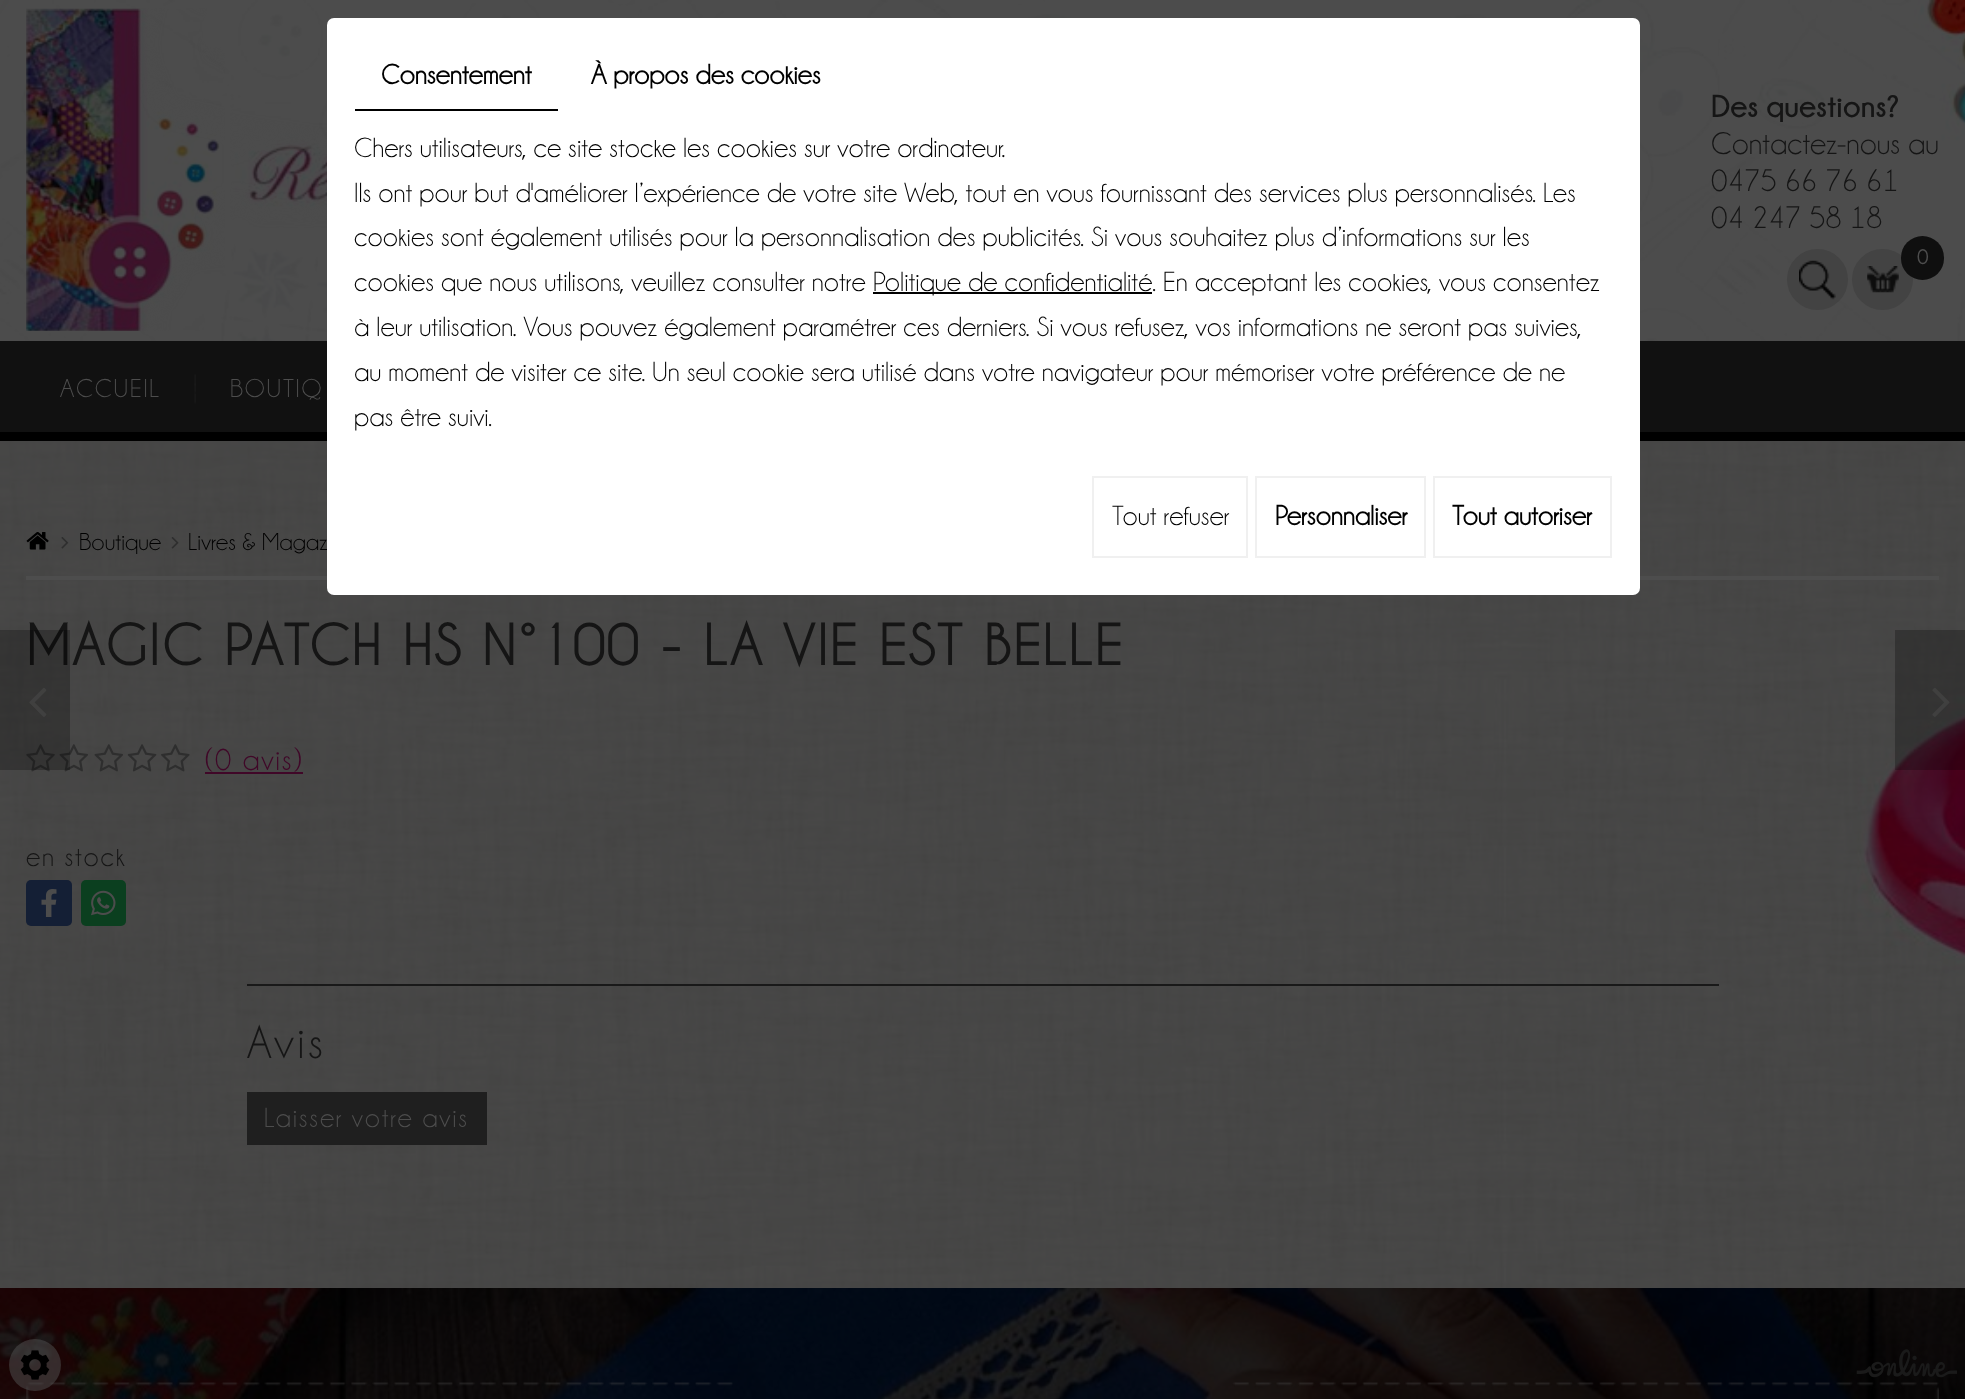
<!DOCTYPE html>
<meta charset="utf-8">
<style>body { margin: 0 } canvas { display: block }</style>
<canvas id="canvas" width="1965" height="1399"></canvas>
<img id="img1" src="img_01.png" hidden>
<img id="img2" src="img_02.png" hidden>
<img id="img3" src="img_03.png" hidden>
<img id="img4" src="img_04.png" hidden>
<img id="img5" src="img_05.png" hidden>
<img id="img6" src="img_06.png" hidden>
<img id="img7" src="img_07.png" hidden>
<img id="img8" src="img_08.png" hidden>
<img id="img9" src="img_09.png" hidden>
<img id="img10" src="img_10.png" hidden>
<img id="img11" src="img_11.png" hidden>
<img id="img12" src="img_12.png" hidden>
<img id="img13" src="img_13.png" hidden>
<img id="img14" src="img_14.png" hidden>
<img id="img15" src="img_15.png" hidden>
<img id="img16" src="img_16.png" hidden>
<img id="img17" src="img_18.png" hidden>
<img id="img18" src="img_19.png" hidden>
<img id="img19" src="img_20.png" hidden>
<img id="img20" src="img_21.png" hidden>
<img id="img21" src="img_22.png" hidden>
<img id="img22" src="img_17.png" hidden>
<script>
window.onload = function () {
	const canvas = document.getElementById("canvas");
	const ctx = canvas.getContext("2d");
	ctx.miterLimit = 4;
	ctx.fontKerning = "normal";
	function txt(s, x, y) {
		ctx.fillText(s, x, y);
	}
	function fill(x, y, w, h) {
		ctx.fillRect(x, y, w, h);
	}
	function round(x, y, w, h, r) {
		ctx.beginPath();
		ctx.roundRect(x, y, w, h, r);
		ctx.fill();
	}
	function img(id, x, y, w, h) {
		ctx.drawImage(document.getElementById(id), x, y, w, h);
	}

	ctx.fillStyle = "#FFFFFF";
	fill(0, 0, 1965, 1399);
	img("img1", 0, 0, 1965, 341);
	img("img2", 26, 8, 301, 323);
	ctx.fillStyle = "#000000";
	fill(0, 432, 1965, 9);
	ctx.fillStyle = "#111111";
	fill(0, 341, 1965, 91);
	ctx.fillStyle = "#434343";
	ctx.beginPath();
	ctx.arc(1817.5, 279.5, 30.5, 0, Math.PI * 2);
	ctx.fill();
	img("img3", 1799, 260, 37, 40);
	ctx.beginPath();
	ctx.arc(1882.5, 279.5, 30.5, 0, Math.PI * 2);
	ctx.fill();
	img("img4", 1867, 266, 32, 27);
	ctx.fillStyle = "#0F0F0F";
	round(1901, 236, 43, 44, 21.5);
	img("img5", 194, 374, 2, 30);
	img("img6", 0, 441, 1965, 847);
	ctx.fillStyle = "#4D4D4D";
	fill(26, 576, 1913, 4);
	img("img7", 26, 532, 23, 18);
	img("img8", 61, 537, 8, 12);
	img("img9", 171, 537, 8, 12);
	img("img10", 26, 744, 29, 28);
	img("img11", 59, 744, 29, 28);
	img("img12", 94, 744, 29, 28);
	img("img13", 127, 744, 30, 28);
	img("img14", 161, 744, 29, 28);
	ctx.fillStyle = "#400728";
	fill(205, 772, 98, 2);
	ctx.fillStyle = "#141F35";
	round(26, 880, 46, 46, 5);
	img("img15", 41, 889, 16, 28);
	ctx.fillStyle = "#0B3F1F";
	round(81, 880, 45, 46, 5);
	img("img16", 91, 890, 25, 26);
	ctx.fillStyle = "rgba(0, 0, 0, 0.25)";
	fill(1895, 630, 70, 140);
	img("img17", 1932, 687, 18, 30);
	ctx.fillStyle = "#191919";
	fill(247, 984, 1472, 2);
	ctx.fillStyle = "#1F1F1F";
	fill(247, 1092, 240, 53);
	img("img18", 0, 1288, 1965, 111);
	img("img19", 26, 1382, 1913, 17);
	ctx.fillStyle = "rgba(77, 77, 77, 0.54)";
	ctx.beginPath();
	ctx.arc(35, 1365, 26, 0, Math.PI * 2);
	ctx.fill();
	img("img20", 20, 1350, 30, 30);
	img("img21", 1856, 1349, 101, 29);
	ctx.font = "bold 31.5px 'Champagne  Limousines'";
	ctx.fillStyle = "#151515";
	txt("Des questions?", 1711, 117);
	ctx.font = "31.5px 'Champagne  Limousines'";
	txt("Contactez-nous au", 1711, 154);
	txt("0475 66 76 61", 1711, 191);
	txt("04 247 58 18", 1711, 228);
	ctx.font = "bold 21px 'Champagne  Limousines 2'";
	ctx.fillStyle = "#4D4D4D";
	txt("0", 1917, 264);
	ctx.letterSpacing = "1.75px";
	ctx.font = "26px 'Champagne  Limousines'";
	txt("ACCUEIL", 60, 397);
	txt("BOUTIQ", 230, 397);
	ctx.letterSpacing = "0px";
	ctx.font = "24.5px 'Champagne  Limousines'";
	ctx.fillStyle = "#000000";
	txt("Boutique", 79, 550);
	txt("Livres & Magaz", 188, 550);
	ctx.fillStyle = "#FFFFFF";
	round(327, 18, 1313, 577, 7);
	ctx.strokeStyle = "#F0F0F0";
	ctx.lineWidth = 2;
	ctx.strokeRect(1434, 477, 177, 80);
	ctx.font = "bold 28px 'Champagne  Limousines 2'";
	ctx.fillStyle = "#000000";
	txt("Tout autoriser", 1452, 525);
	ctx.strokeRect(1256, 477, 169, 80);
	txt("Personnaliser", 1275, 525);
	ctx.strokeRect(1093, 477, 154, 80);
	ctx.font = "28px 'Champagne  Limousines'";
	txt("Tout refuser", 1112, 525);
	txt("pas être suivi.", 354, 426);
	txt("au moment de visiter ce site. Un seul cookie sera utilisé dans votre navigateur pour mémoriser votre préférence de ne", 354, 381);
	txt("à leur utilisation. Vous pouvez également paramétrer ces derniers. Si vous refusez, vos informations ne seront pas suivies,", 354, 336);
	fill(873, 292, 279, 2);
	txt("Politique de confidentialité. En acceptant les cookies, vous consentez", 873, 291);
	txt("cookies que nous utilisons, veuillez consulter notre", 354, 291);
	txt("cookies sont également utilisés pour la personnalisation des publicités. Si vous souhaitez plus d’informations sur les", 354, 246);
	txt("Ils ont pour but d'améliorer l’expérience de votre site Web, tout en vous fournissant des services plus personnalisés. Les", 354, 202);
	txt("Chers utilisateurs, ce site stocke les cookies sur votre ordinateur.", 354, 157);
	ctx.font = "bold 28px 'Champagne  Limousines 2'";
	txt("À propos des cookies", 591, 84);
	txt("Consentement", 381, 84);
	fill(355, 109, 203, 2);
	ctx.letterSpacing = "1.75px";
	ctx.font = "bold 52.5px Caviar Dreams";
	ctx.fillStyle = "#151515";
	txt("MAGIC PATCH HS N°100 - LA VIE EST BELLE", 26, 665);
	ctx.font = "31px 'Champagne  Limousines'";
	ctx.fillStyle = "#400728";
	txt("(0 avis)", 205, 770);
	ctx.font = "28px 'Champagne  Limousines'";
	ctx.fillStyle = "#151515";
	txt("en stock", 26, 866);
	ctx.fillStyle = "rgba(0, 0, 0, 0.25)";
	fill(0, 630, 70, 140);
	img("img22", 29, 687, 18, 30);
	ctx.font = "42px Caviar Dreams";
	ctx.fillStyle = "#151515";
	txt("Avis", 246, 1058);
	ctx.font = "28px 'Champagne  Limousines'";
	ctx.fillStyle = "#4D4D4D";
	txt("Laisser votre avis", 264, 1127);
};
</script>
